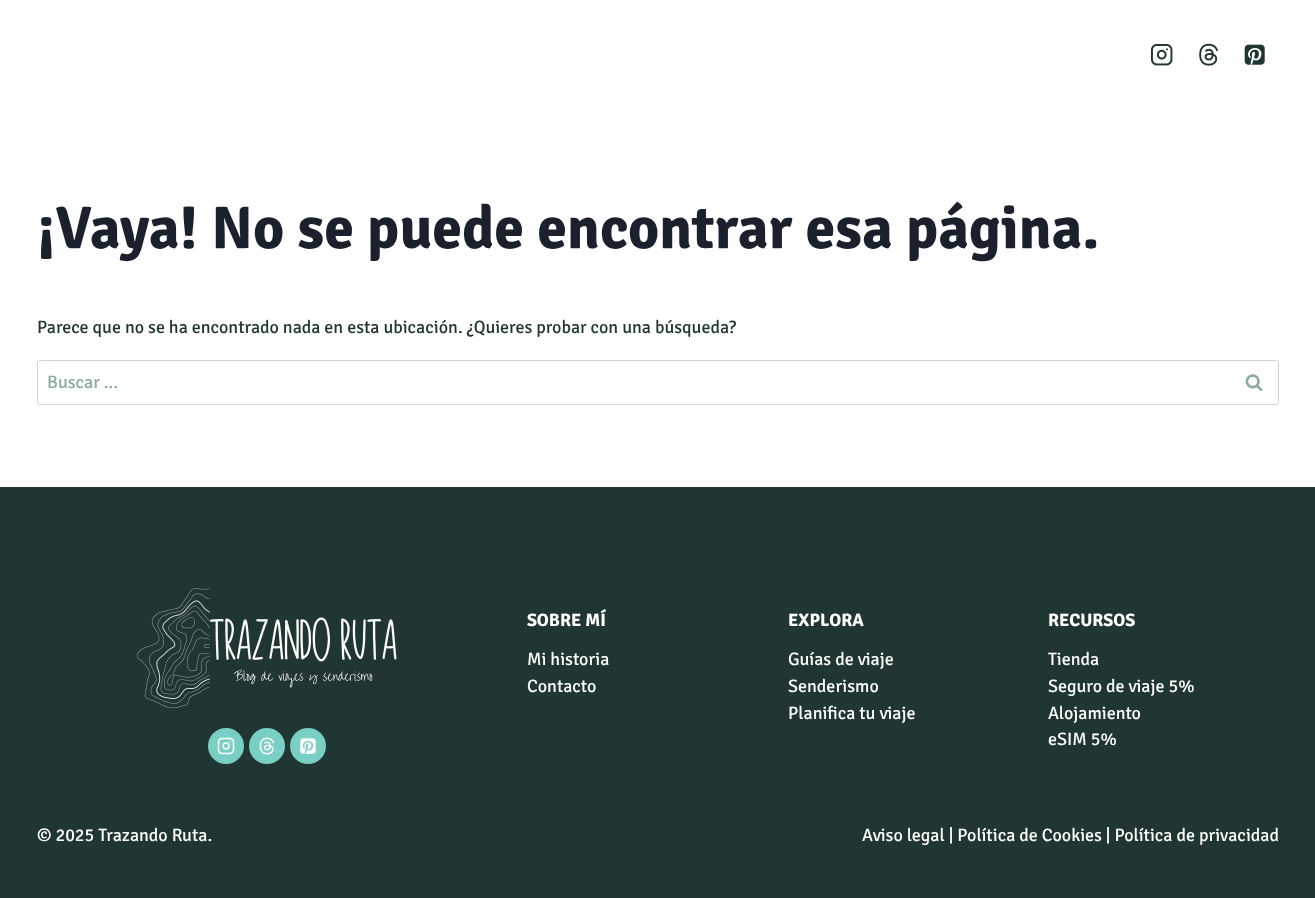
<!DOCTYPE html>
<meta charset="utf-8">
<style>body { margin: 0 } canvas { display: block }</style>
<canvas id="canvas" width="1315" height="898"></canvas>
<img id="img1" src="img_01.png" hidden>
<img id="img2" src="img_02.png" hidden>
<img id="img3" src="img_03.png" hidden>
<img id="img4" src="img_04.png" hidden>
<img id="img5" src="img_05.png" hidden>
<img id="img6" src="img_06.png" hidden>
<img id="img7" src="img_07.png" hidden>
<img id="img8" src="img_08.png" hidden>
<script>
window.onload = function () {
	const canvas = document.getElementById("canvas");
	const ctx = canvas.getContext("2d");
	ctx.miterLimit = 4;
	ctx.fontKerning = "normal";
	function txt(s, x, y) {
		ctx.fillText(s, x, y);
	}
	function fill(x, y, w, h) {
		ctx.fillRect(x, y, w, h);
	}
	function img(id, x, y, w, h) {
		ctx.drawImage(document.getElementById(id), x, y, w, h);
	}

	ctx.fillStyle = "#FFFFFF";
	fill(0, 0, 1315, 898);
	img("img1", 1150, 44, 23, 22);
	img("img2", 1199, 43, 19, 23);
	img("img3", 1244, 44, 21, 21);
	ctx.beginPath();
	ctx.roundRect(37.5, 360.5, 1241, 44, 2.5);
	ctx.strokeStyle = "#CBD5E0";
	ctx.stroke();
	img("img4", 1245, 374, 18, 17);
	ctx.fillStyle = "#203633";
	fill(0, 487, 1315, 411);
	img("img5", 136, 588, 261, 120);
	ctx.fillStyle = "#7ACFC4";
	ctx.beginPath();
	ctx.arc(226, 746, 18, 0, Math.PI * 2);
	ctx.fill();
	img("img6", 217, 737, 18, 18);
	ctx.beginPath();
	ctx.arc(267, 746, 18, 0, Math.PI * 2);
	ctx.fill();
	img("img7", 259, 737, 16, 18);
	ctx.beginPath();
	ctx.arc(308, 746, 18, 0, Math.PI * 2);
	ctx.fill();
	img("img8", 300, 738, 16, 16);
	ctx.font = "bold 60px Signika";
	ctx.fillStyle = "#1A202C";
	txt("¡Vaya! No se puede encontrar esa página.", 37, 248);
	ctx.font = "18px Signika";
	ctx.fillStyle = "#203633";
	txt("Parece que no se ha encontrado nada en esta ubicación. ¿Quieres probar con una búsqueda?", 37, 333);
	ctx.fillStyle = "#8AA9A3";
	txt("Buscar …", 47, 388);
	ctx.font = "bold 18px Signika";
	ctx.fillStyle = "#FFFFFF";
	txt("SOBRE MÍ", 527, 626);
	ctx.font = "18px Signika";
	txt("Mi historia", 527, 665);
	txt("Contacto", 527, 692);
	ctx.font = "bold 18px Signika";
	txt("EXPLORA", 788, 626);
	ctx.font = "18px Signika";
	txt("Guías de viaje", 788, 665);
	txt("Senderismo", 788, 692);
	txt("Planifica tu viaje", 788, 719);
	ctx.font = "bold 18px Signika";
	txt("RECURSOS", 1048, 626);
	ctx.font = "18px Signika";
	txt("Tienda", 1048, 665);
	txt("Seguro de viaje 5%", 1048, 692);
	txt("Alojamiento", 1048, 719);
	txt("eSIM 5%", 1048, 745);
	txt("© 2025 Trazando Ruta.", 37, 841);
	txt("Aviso legal | Política de Cookies | Política de privacidad", 862, 841);
};
</script>
